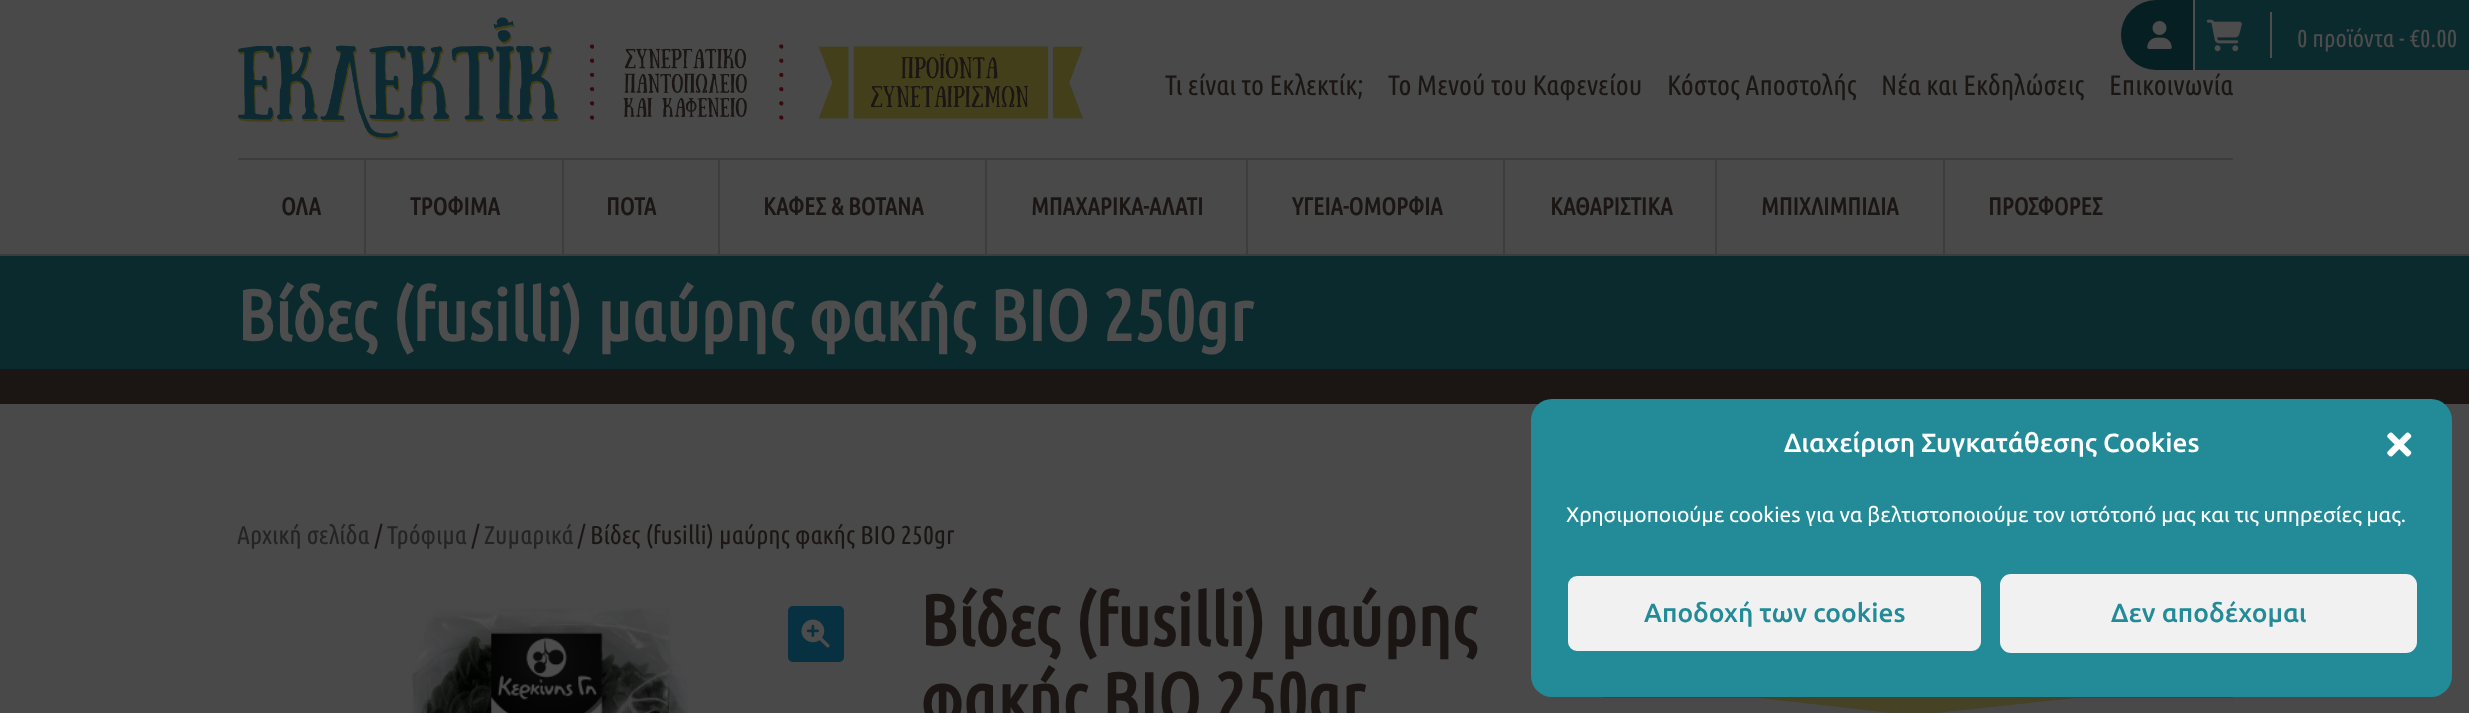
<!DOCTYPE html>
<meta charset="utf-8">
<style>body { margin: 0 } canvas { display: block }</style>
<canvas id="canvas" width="2469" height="713"></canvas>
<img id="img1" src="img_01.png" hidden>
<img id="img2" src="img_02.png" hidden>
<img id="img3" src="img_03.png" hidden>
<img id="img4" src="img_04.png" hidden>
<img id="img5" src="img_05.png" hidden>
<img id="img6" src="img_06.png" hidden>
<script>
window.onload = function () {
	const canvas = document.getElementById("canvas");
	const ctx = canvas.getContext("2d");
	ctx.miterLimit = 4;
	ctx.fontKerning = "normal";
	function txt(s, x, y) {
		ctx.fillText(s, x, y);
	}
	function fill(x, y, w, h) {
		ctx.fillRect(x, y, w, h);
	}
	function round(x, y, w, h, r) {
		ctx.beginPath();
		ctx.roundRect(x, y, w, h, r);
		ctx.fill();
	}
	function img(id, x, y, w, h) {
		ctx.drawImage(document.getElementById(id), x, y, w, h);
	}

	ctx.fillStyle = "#494949";
	fill(0, 0, 2469, 713);
	ctx.fillStyle = "#3D3D3D";
	fill(0, 254, 2469, 2);
	ctx.fillStyle = "#061F22";
	ctx.beginPath();
	ctx.roundRect(2121, 0, 74, 70, [35, 0, 0, 35]);
	ctx.fill();
	ctx.fillStyle = "#4D4D4D";
	fill(2193, 0, 2, 70);
	img("img1", 2147, 21, 25, 28);
	ctx.fillStyle = "#0B2A2E";
	fill(2195, 0, 274, 70);
	ctx.fillStyle = "#4D4D4D";
	fill(2270, 12, 2, 46);
	img("img2", 2206, 19, 36, 33);
	img("img3", 238, 17, 846, 123);
	ctx.fillStyle = "#3D3D3D";
	fill(238, 158, 1995, 2);
	fill(364, 159, 2, 95);
	fill(562, 159, 2, 95);
	fill(718, 159, 2, 95);
	fill(985, 159, 2, 95);
	fill(1246, 159, 2, 95);
	fill(1503, 159, 2, 95);
	fill(1715, 159, 2, 95);
	fill(1943, 159, 2, 95);
	ctx.fillStyle = "#0B2A2E";
	fill(0, 256, 2469, 113);
	ctx.fillStyle = "#1B1614";
	fill(0, 369, 2469, 35);
	img("img4", 411, 608, 277, 105);
	ctx.fillStyle = "#073041";
	round(788, 606, 56, 56, 5);
	img("img5", 801, 619, 29, 29);
	ctx.fillStyle = "#464226";
	fill(1603, 697, 630, 1);
	ctx.beginPath();
	ctx.moveTo(1760, 698);
	ctx.lineTo(1918, 698);
	ctx.lineTo(1918, 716);
	ctx.closePath();
	ctx.fill();
	ctx.beginPath();
	ctx.moveTo(2075, 698);
	ctx.lineTo(1917, 698);
	ctx.lineTo(1917, 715);
	ctx.closePath();
	ctx.fill();
	ctx.fillStyle = "#238B98";
	round(1531, 399, 921, 298, 21);
	img("img6", 2387, 432, 25, 25);
	ctx.fillStyle = "#F1F1F1";
	ctx.beginPath();
	ctx.roundRect(1567, 575, 415, 77, 10);
	ctx.fill();
	ctx.strokeStyle = "#238B98";
	ctx.lineWidth = 2;
	ctx.stroke();
	ctx.beginPath();
	ctx.roundRect(2001, 575, 415, 77, 10);
	ctx.fill();
	ctx.strokeStyle = "#F1F1F1";
	ctx.stroke();
	ctx.font = "24.5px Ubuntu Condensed";
	ctx.fillStyle = "#4D4D4D";
	txt("0 προϊόντα - €0.00", 2297, 47);
	ctx.font = "28px Ubuntu Condensed";
	ctx.fillStyle = "#1B1614";
	txt("Τι είναι το Εκλεκτίκ;", 1165, 95);
	txt("Το Μενού του Καφενείου", 1388, 95);
	txt("Κόστος Αποστολής", 1667, 95);
	txt("Νέα και Εκδηλώσεις", 1881, 95);
	txt("Επικοινωνία", 2109, 95);
	ctx.font = "bold 24.5px Ubuntu Condensed";
	txt("ΟΛΑ", 281, 215);
	txt("ΤΡΟΦΙΜΑ", 410, 215);
	txt("ΠΟΤΑ", 606, 215);
	txt("ΚΑΦΕΣ & ΒΟΤΑΝΑ", 763, 215);
	txt("ΜΠΑΧΑΡΙΚΑ-ΑΛΑΤΙ", 1031, 215);
	txt("ΥΓΕΙΑ-ΟΜΟΡΦΙΑ", 1292, 215);
	txt("ΚΑΘΑΡΙΣΤΙΚΑ", 1550, 215);
	txt("ΜΠΙΧΛΙΜΠΙΔΙΑ", 1761, 215);
	txt("ΠΡΟΣΦΟΡΕΣ", 1988, 215);
	ctx.font = "bold 71.75px Ubuntu Condensed";
	ctx.fillStyle = "#4D4D4D";
	txt("Βίδες (fusilli) μαύρης φακής ΒΙΟ 250gr", 237, 341);
	ctx.font = "25.75px Ubuntu Condensed";
	ctx.fillStyle = "#242424";
	txt("Αρχική σελίδα", 237, 544);
	ctx.fillStyle = "#1B1614";
	txt("/", 375, 544);
	ctx.fillStyle = "#242424";
	txt("Τρόφιμα", 387, 544);
	ctx.fillStyle = "#1B1614";
	txt("/", 472, 544);
	ctx.fillStyle = "#242424";
	txt("Ζυμαρικά", 484, 544);
	ctx.fillStyle = "#1B1614";
	txt("/ Βίδες (fusilli) μαύρης φακής ΒΙΟ 250gr", 578, 544);
	ctx.font = "bold 71.75px Ubuntu Condensed";
	txt("Βίδες (fusilli) μαύρης", 920, 646);
	txt("φακής ΒΙΟ 250gr", 920, 724);
	ctx.font = "500 26.25px Ubuntu";
	ctx.fillStyle = "#FFFFFF";
	txt("Διαχείριση Συγκατάθεσης Cookies", 1784, 452);
	ctx.font = "21px Ubuntu";
	txt("Χρησιμοποιούμε cookies για να βελτιστοποιούμε τον ιστότοπό μας και τις υπηρεσίες μας.", 1566, 522);
	ctx.font = "500 26.25px Ubuntu";
	ctx.fillStyle = "#238B98";
	txt("Αποδοχή των cookies", 1644, 622);
	txt("Δεν αποδέχομαι", 2111, 622);
};
</script>
